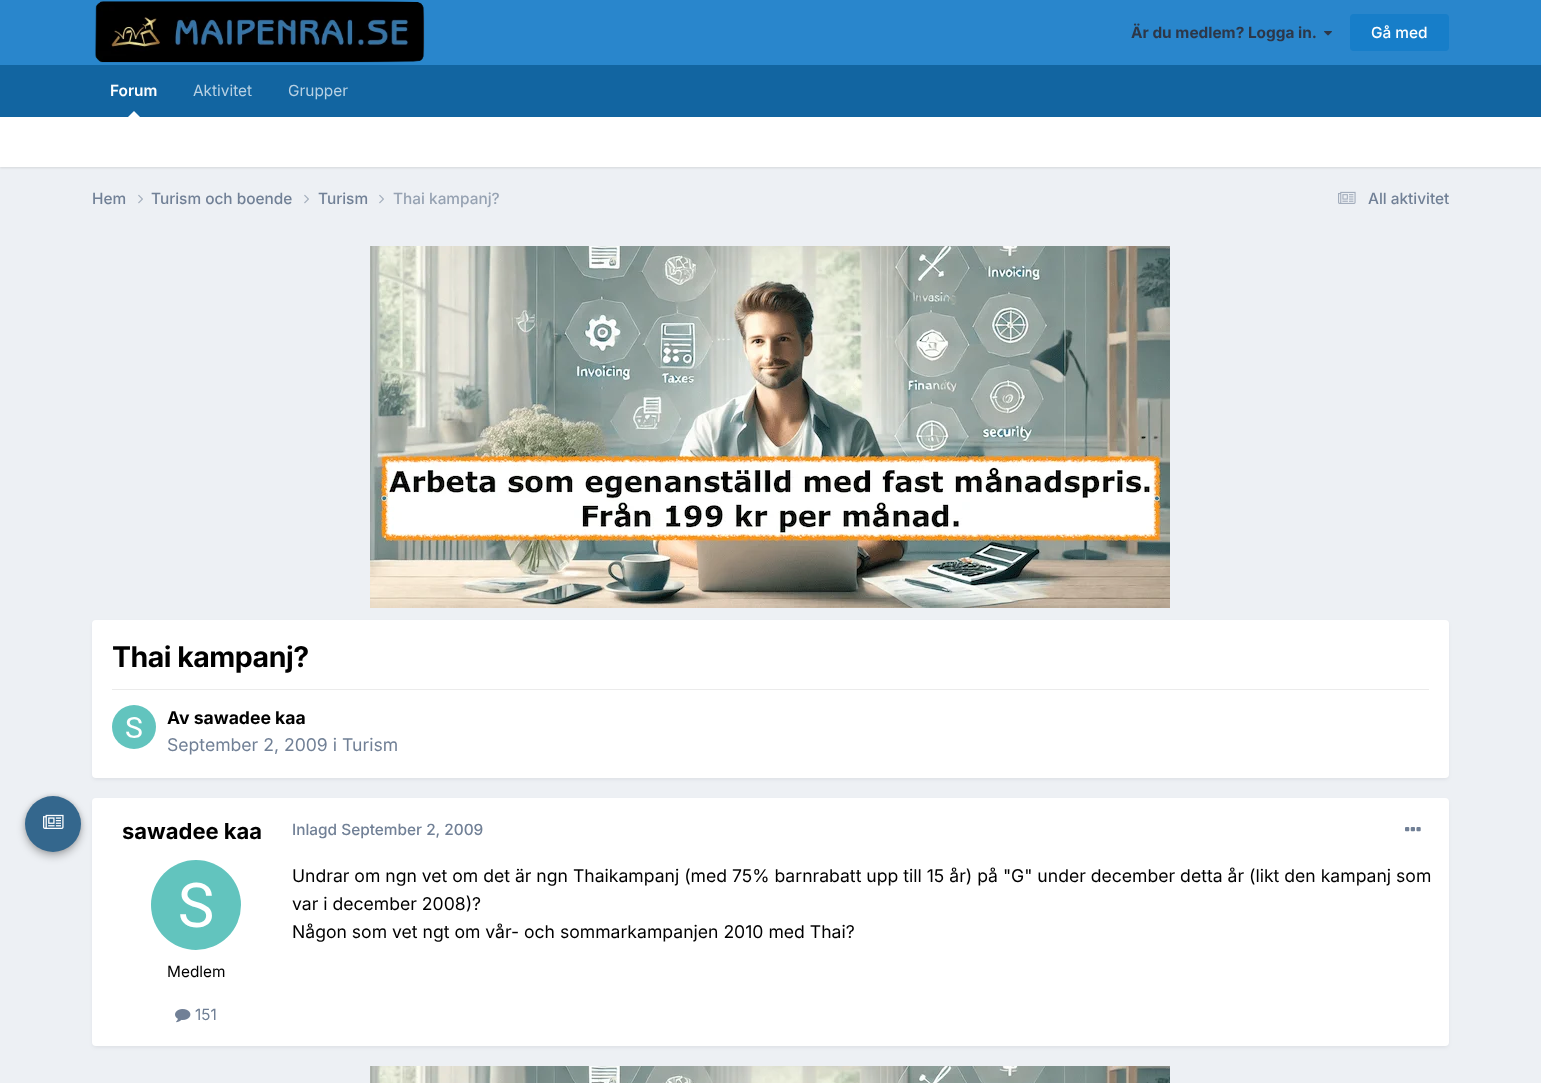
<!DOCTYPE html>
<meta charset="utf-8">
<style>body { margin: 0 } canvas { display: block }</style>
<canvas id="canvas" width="1541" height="1083"></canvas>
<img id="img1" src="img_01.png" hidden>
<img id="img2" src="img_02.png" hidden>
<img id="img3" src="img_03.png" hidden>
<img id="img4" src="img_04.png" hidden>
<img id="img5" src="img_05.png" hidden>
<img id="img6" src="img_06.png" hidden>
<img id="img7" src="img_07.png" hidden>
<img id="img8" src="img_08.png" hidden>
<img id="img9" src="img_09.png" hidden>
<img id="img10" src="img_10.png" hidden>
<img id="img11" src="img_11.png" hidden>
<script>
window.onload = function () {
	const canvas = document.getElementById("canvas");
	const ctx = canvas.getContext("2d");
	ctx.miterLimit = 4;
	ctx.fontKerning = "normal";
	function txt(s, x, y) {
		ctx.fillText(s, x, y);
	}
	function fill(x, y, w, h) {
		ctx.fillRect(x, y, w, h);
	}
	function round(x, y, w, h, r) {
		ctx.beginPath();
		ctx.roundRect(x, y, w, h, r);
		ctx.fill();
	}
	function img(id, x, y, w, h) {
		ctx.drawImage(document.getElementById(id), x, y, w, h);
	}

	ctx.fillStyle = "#EDF0F4";
	fill(0, 0, 1541, 1083);
	ctx.fillStyle = "#2986CC";
	fill(0, 0, 1541, 65);
	img("img1", 95, 1, 330, 62);
	img("img2", 1324, 31, 8, 5);
	ctx.fillStyle = "#177EC9";
	round(1350, 14, 99, 37, 4);
	ctx.fillStyle = "#1265A1";
	fill(0, 65, 1541, 52);
	ctx.fillStyle = "rgba(0, 0, 0, 0.1)";
	ctx.filter = "blur(1px)";
	ctx.beginPath();
	ctx.rect(0, 118, 1541, 50);
	ctx.fill();
	ctx.filter = "none";
	ctx.fillStyle = "#FFFFFF";
	ctx.beginPath();
	ctx.moveTo(140, 117);
	ctx.lineTo(128, 117);
	ctx.lineTo(134, 111);
	ctx.closePath();
	ctx.fill();
	fill(0, 117, 1541, 50);
	ctx.fillStyle = "rgba(45, 55, 72, 0.1)";
	ctx.filter = "blur(2px)";
	ctx.beginPath();
	ctx.roundRect(93, 801, 1355, 246, 3);
	ctx.fill();
	ctx.filter = "none";
	ctx.fillStyle = "#FFFFFF";
	round(92, 798, 1357, 248, 4);
	ctx.fillStyle = "rgba(0, 0, 0, 0.28)";
	ctx.filter = "blur(4px)";
	ctx.beginPath();
	ctx.roundRect(25, 800, 56, 56, 28);
	ctx.fill();
	ctx.filter = "none";
	ctx.fillStyle = "rgba(0, 0, 0, 0.14)";
	ctx.filter = "blur(2px)";
	ctx.beginPath();
	ctx.roundRect(25, 796, 56, 56, 28);
	ctx.fill();
	ctx.filter = "none";
	ctx.fillStyle = "#34678D";
	ctx.beginPath();
	ctx.arc(53, 824, 28, 0, Math.PI * 2);
	ctx.fill();
	img("img3", 43, 814, 21, 15);
	img("img4", 138, 194, 5, 10);
	img("img4", 304, 194, 5, 10);
	img("img4", 379, 194, 5, 10);
	img("img5", 1338, 191, 18, 13);
	img("img6", 370, 246, 800, 362);
	ctx.fillStyle = "rgba(45, 55, 72, 0.1)";
	ctx.filter = "blur(2px)";
	ctx.beginPath();
	ctx.roundRect(93, 623, 1355, 156, 3);
	ctx.fill();
	ctx.filter = "none";
	ctx.fillStyle = "#FFFFFF";
	round(92, 620, 1357, 158, 4);
	ctx.fillStyle = "#EBEBEB";
	fill(112, 689, 1317, 1);
	img("img7", 112, 705, 44, 44);
	img("img8", 151, 860, 90, 90);
	img("img9", 175, 1009, 16, 14);
	img("img10", 1405, 827, 16, 5);
	img("img11", 370, 1066, 800, 17);
	ctx.font = "bold 15.4px Inter";
	ctx.fillStyle = "#2D3748";
	txt("Är du medlem? Logga in.", 1131, 38);
	ctx.font = "500 15.4px Inter";
	ctx.fillStyle = "#FFFFFF";
	txt("Gå med", 1371, 38);
	ctx.font = "600 15.4px Inter";
	txt("Forum", 110, 96);
	ctx.font = "15.4px Inter";
	ctx.fillStyle = "#B8D1E3";
	txt("Aktivitet", 193, 96);
	txt("Grupper", 288, 96);
	ctx.font = "500 15.4px Inter";
	ctx.fillStyle = "#718096";
	txt("Hem", 92, 204);
	txt("Turism och boende", 151, 204);
	txt("Turism", 318, 204);
	ctx.fillStyle = "#96A2B2";
	txt("Thai kampanj?", 393, 204);
	ctx.fillStyle = "#718096";
	txt("All aktivitet", 1368, 204);
	ctx.letterSpacing = "-0.5px";
	ctx.font = "bold 28.5px Inter";
	ctx.fillStyle = "#000000";
	txt("Thai kampanj?", 112, 667);
	ctx.letterSpacing = "0px";
	ctx.font = "bold 17.6px Inter";
	txt("Av sawadee kaa", 167, 724);
	ctx.font = "17.6px Inter";
	ctx.fillStyle = "#718096";
	txt("September 2, 2009 i Turism", 167, 751);
	ctx.font = "bold 22px Inter";
	ctx.fillStyle = "#000000";
	txt("sawadee kaa", 122, 839);
	ctx.font = "15.4px Inter";
	txt("Medlem", 167, 977);
	ctx.fillStyle = "#718096";
	txt("151", 195, 1020);
	ctx.font = "500 15.4px Inter";
	txt("Inlagd September 2, 2009", 292, 835);
	ctx.font = "17.6px Inter";
	ctx.fillStyle = "#000000";
	txt("Undrar om ngn vet om det är ngn Thaikampanj (med 75% barnrabatt upp till 15 år) på \"G\" under december detta år (likt den kampanj som", 292, 882);
	txt("var i december 2008)?", 292, 910);
	txt("Någon som vet ngt om vår- och sommarkampanjen 2010 med Thai?", 292, 938);
};
</script>
